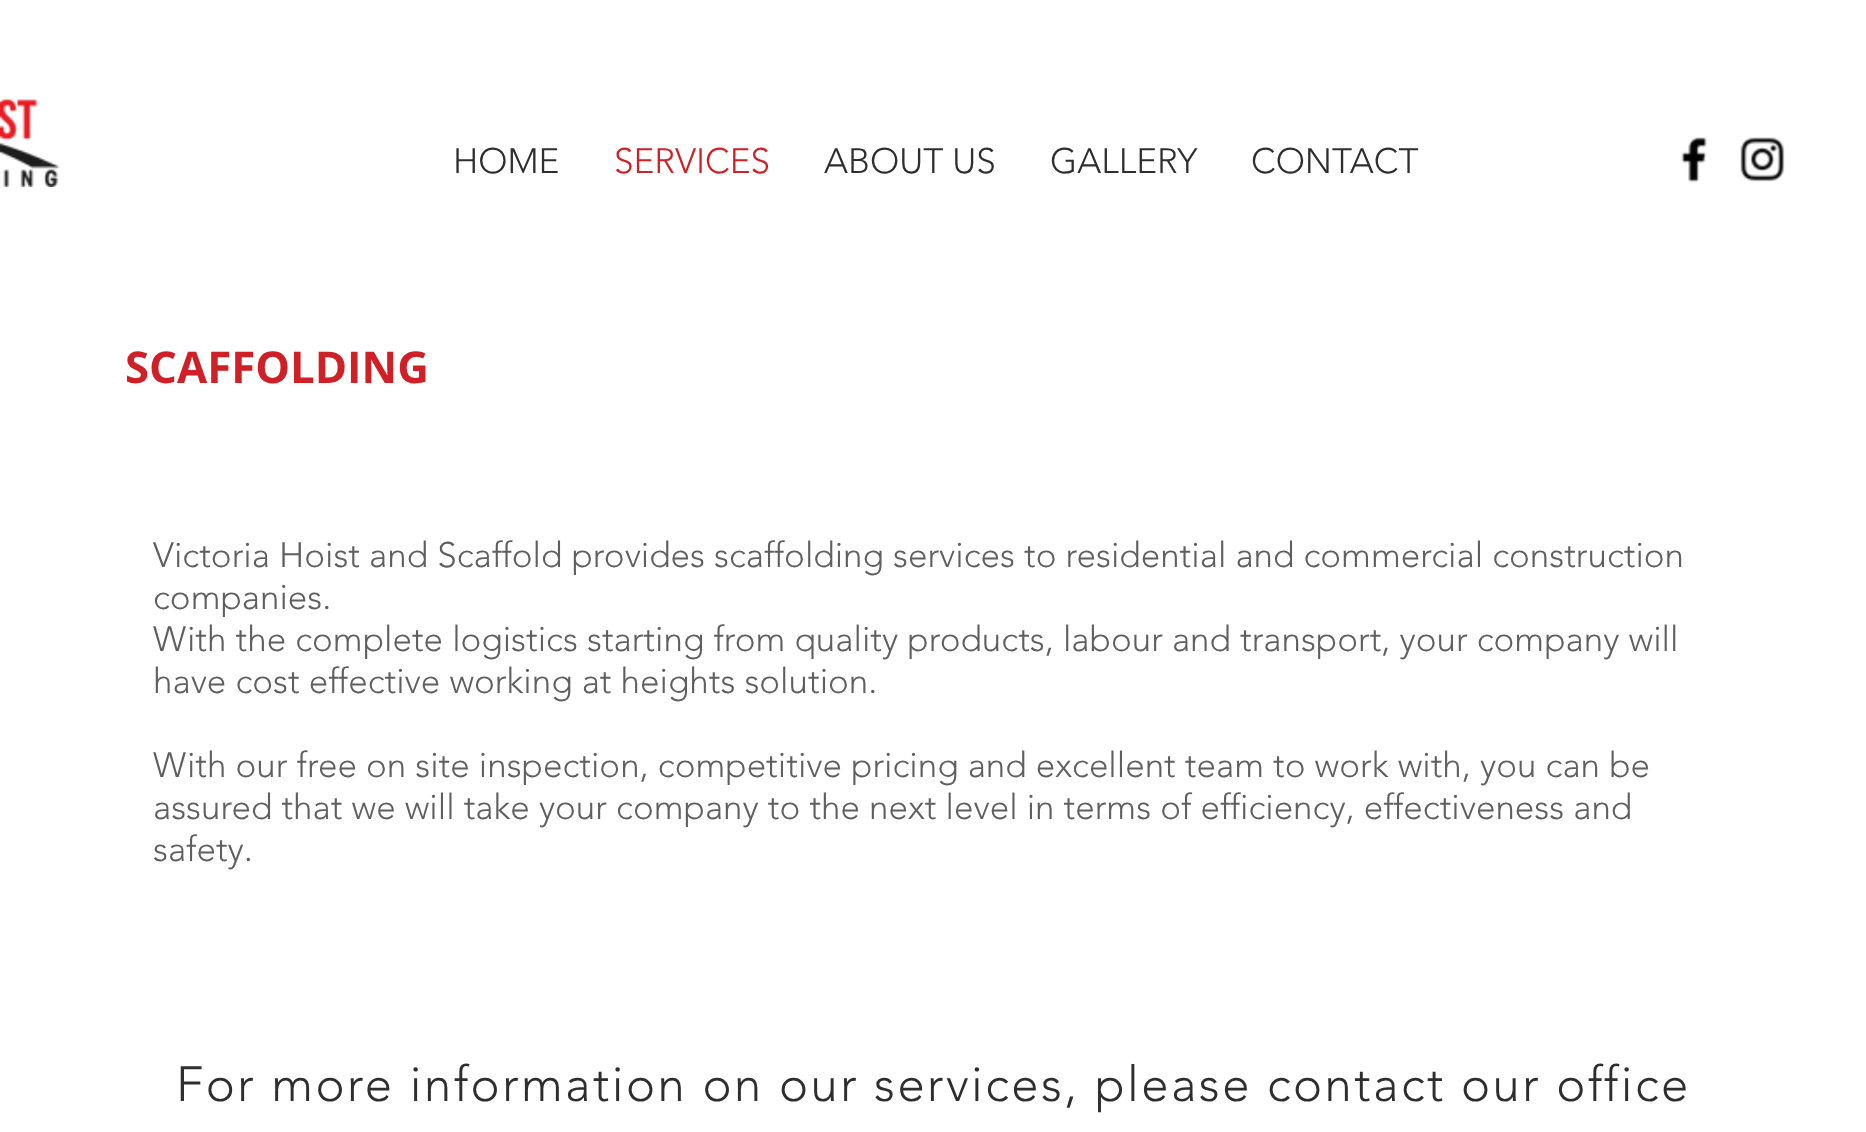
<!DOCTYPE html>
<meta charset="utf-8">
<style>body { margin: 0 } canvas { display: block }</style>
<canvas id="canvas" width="1866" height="1132"></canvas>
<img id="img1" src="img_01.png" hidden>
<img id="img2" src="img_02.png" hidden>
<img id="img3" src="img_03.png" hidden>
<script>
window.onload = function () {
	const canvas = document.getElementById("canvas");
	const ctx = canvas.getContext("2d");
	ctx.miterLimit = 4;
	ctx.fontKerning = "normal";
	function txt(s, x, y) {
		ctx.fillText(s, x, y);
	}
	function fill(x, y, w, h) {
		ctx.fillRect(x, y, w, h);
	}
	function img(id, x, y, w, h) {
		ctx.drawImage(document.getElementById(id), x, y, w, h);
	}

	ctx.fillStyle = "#FFFFFF";
	fill(0, 0, 1866, 1132);
	img("img1", 0, 98, 60, 89);
	img("img2", 1681, 137, 26, 46);
	img("img3", 1740, 137, 45, 45);
	ctx.font = "300 35px 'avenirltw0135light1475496'";
	ctx.fillStyle = "#2F2E2E";
	txt("HOME", 453, 173);
	ctx.fillStyle = "#CE2026";
	txt("SERVICES", 614, 173);
	ctx.fillStyle = "#2F2E2E";
	txt("ABOUT US", 824, 173);
	txt("GALLERY", 1050, 173);
	txt("CONTACT", 1251, 173);
	ctx.font = "bold 43.75px Open Sans";
	ctx.fillStyle = "#CE2026";
	txt("SCAFFOLDING", 125, 383);
	ctx.font = "300 35px 'avenirltw0135light1475496'";
	ctx.fillStyle = "#605E5E";
	txt("Victoria Hoist and Scaffold provides scaffolding services to residential and commercial construction", 153, 567);
	txt("companies.", 153, 609);
	txt("With the complete logistics starting from quality products, labour and transport, your company will", 153, 651);
	txt("have cost effective working at heights solution.", 153, 693);
	txt("With our free on site inspection, competitive pricing and excellent team to work with, you can be", 153, 777);
	txt("assured that we will take your company to the next level in terms of efficiency, effectiveness and", 153, 819);
	txt("safety.", 153, 861);
	ctx.letterSpacing = "2.45px";
	ctx.font = "300 49px 'avenirltw0135light1475496'";
	ctx.fillStyle = "#2F2E2E";
	txt("For more information on our services, please contact our office", 176, 1101);
};
</script>
